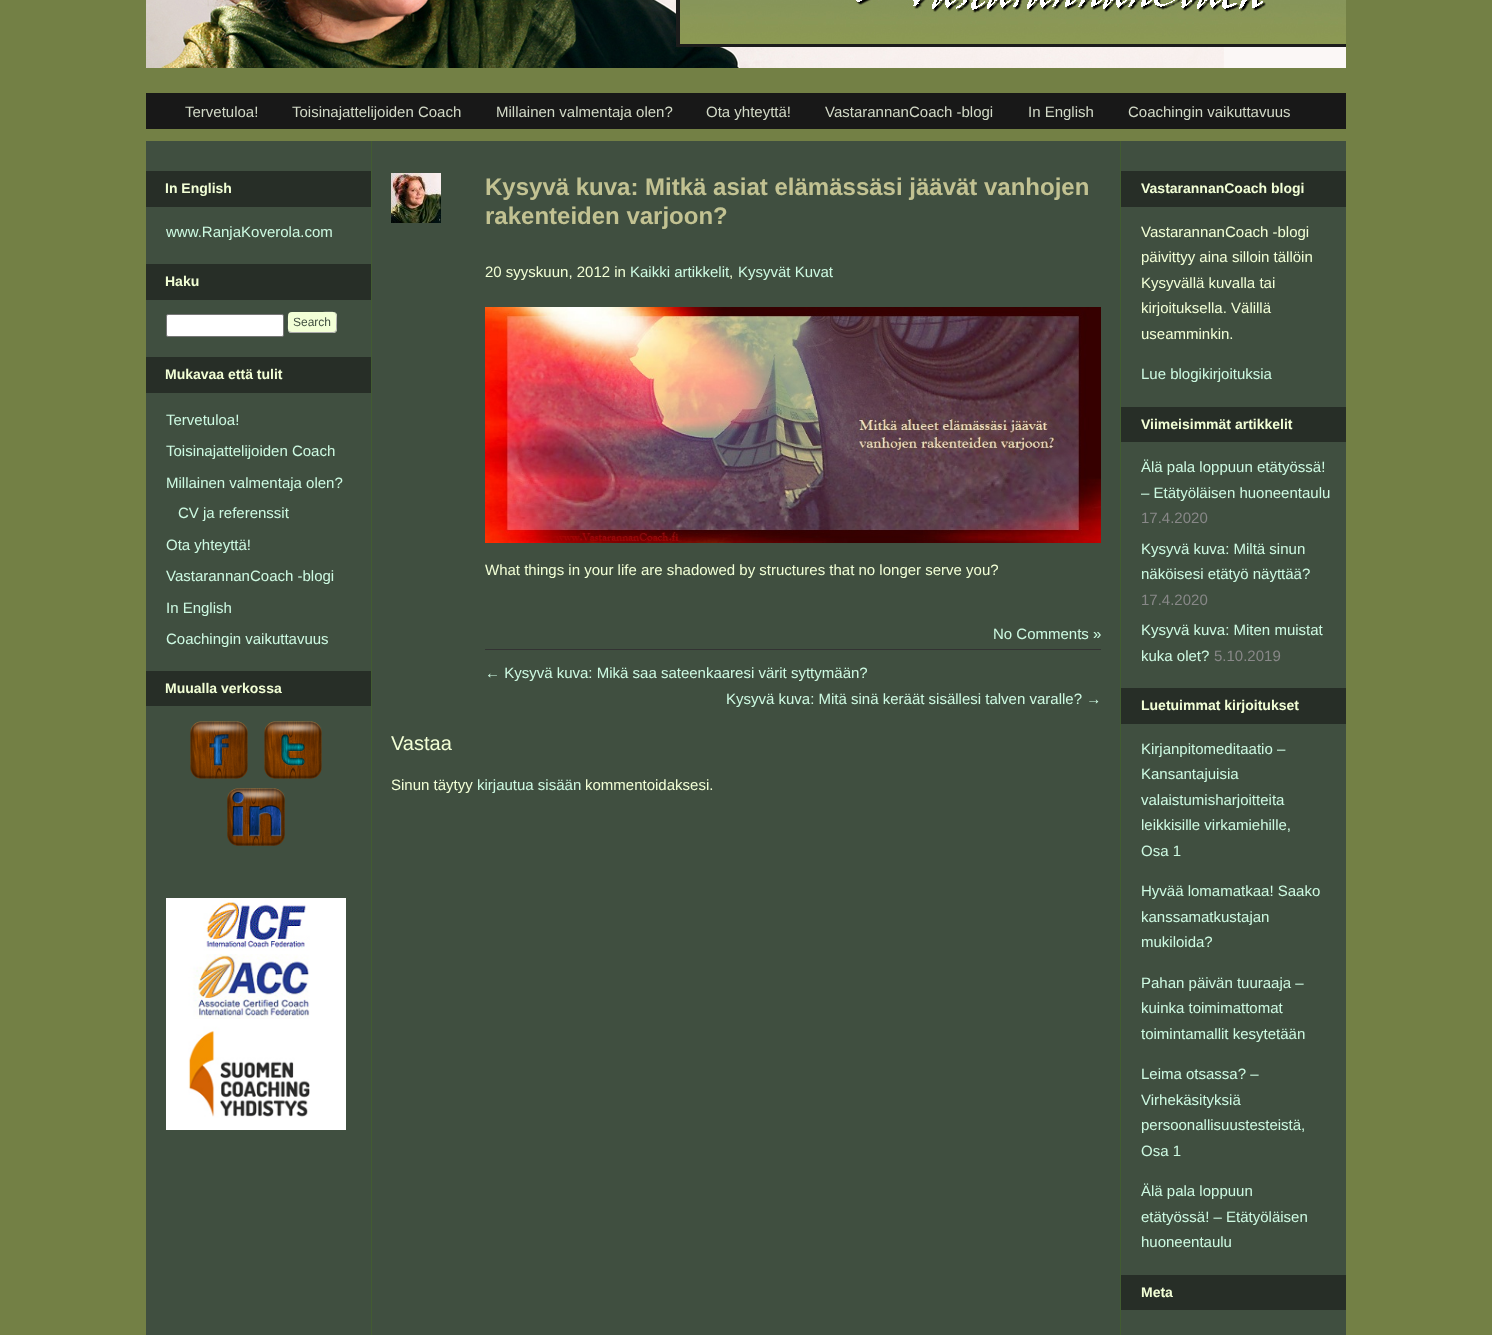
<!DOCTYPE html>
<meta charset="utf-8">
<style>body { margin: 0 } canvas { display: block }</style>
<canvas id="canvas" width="1492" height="1335"></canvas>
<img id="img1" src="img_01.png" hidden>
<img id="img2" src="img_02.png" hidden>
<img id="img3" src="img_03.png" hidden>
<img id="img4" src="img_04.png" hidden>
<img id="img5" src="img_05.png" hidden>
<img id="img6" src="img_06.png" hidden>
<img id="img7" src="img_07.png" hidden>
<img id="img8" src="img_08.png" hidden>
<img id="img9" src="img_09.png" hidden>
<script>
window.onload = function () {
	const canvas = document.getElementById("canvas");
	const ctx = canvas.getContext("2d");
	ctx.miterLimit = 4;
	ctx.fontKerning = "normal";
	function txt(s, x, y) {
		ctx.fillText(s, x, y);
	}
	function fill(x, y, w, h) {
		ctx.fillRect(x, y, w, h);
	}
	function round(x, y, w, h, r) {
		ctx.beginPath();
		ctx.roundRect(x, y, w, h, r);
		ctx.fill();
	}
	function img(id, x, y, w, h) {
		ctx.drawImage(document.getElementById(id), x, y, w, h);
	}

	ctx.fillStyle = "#738045";
	fill(0, 0, 1492, 1335);
	img("img1", 146, 0, 1200, 68);
	ctx.fillStyle = "#181818";
	fill(146, 93, 1200, 36);
	ctx.fillStyle = "#404F40";
	fill(146, 141, 1200, 1194);
	ctx.fillStyle = "#272E27";
	fill(146, 171, 225, 36);
	fill(146, 264, 225, 36);
	ctx.fillStyle = "#FFFFFF";
	ctx.beginPath();
	ctx.roundRect(166.5, 314.5, 117, 22, 1.5);
	ctx.fill();
	ctx.strokeStyle = "#767676";
	ctx.stroke();
	ctx.fillStyle = "#F2FFD6";
	round(288, 312, 49, 21, 4);
	ctx.fillStyle = "#AAAAAA";
	ctx.beginPath();
	ctx.moveTo(292, 312);
	ctx.lineTo(319, 312);
	ctx.bezierCurveTo(337, 312, 337, 309, 337, 325);
	ctx.bezierCurveTo(337, 334, 336, 333, 326, 333);
	ctx.lineTo(290, 333);
	ctx.bezierCurveTo(287, 331, 288, 326, 288, 322);
	ctx.bezierCurveTo(288, 319, 287, 312, 292, 312);
	ctx.closePath();
	ctx.moveTo(292, 312);
	ctx.lineTo(333, 312);
	ctx.bezierCurveTo(335, 312, 336, 314, 336, 316);
	ctx.lineTo(336, 329);
	ctx.bezierCurveTo(336, 331, 335, 332, 333, 332);
	ctx.lineTo(292, 332);
	ctx.bezierCurveTo(290, 332, 288, 331, 288, 329);
	ctx.lineTo(288, 316);
	ctx.bezierCurveTo(288, 314, 290, 312, 292, 312);
	ctx.closePath();
	ctx.fill("evenodd");
	ctx.fillStyle = "#272E27";
	fill(146, 357, 225, 36);
	fill(146, 671, 225, 35);
	img("img2", 190, 721, 58, 58);
	img("img3", 264, 721, 58, 58);
	img("img4", 227, 788, 58, 58);
	img("img5", 166, 898, 180, 56);
	img("img6", 166, 954, 180, 65);
	img("img7", 166, 1019, 180, 111);
	ctx.fillStyle = "#425C31";
	fill(371, 141, 1, 1194);
	img("img8", 391, 173, 50, 50);
	img("img9", 485, 307, 616, 236);
	ctx.fillStyle = "#333333";
	fill(485, 649, 616, 1);
	ctx.fillStyle = "#425C31";
	fill(1120, 141, 1, 1194);
	ctx.fillStyle = "#272E27";
	fill(1121, 171, 225, 36);
	fill(1121, 407, 225, 35);
	fill(1121, 688, 225, 36);
	fill(1121, 1275, 225, 35);
	ctx.font = "15px Liberation Sans";
	ctx.fillStyle = "#D2D9C7";
	txt("Tervetuloa!", 185, 117);
	txt("Toisinajattelijoiden Coach", 292, 117);
	txt("Millainen valmentaja olen?", 496, 117);
	txt("Ota yhteyttä!", 706, 117);
	txt("VastarannanCoach -blogi", 825, 117);
	txt("In English", 1028, 117);
	txt("Coachingin vaikuttavuus", 1128, 117);
	ctx.font = "bold 14px Liberation Sans";
	ctx.fillStyle = "#F2FFD6";
	txt("In English", 165, 193);
	ctx.font = "15px Liberation Sans";
	ctx.fillStyle = "#CDFAE2";
	txt("www.RanjaKoverola.com", 166, 237);
	ctx.font = "bold 14px Liberation Sans";
	ctx.fillStyle = "#F2FFD6";
	txt("Haku", 165, 286);
	ctx.font = "12px Liberation Sans";
	ctx.fillStyle = "#404F40";
	txt("Search", 293, 326);
	ctx.font = "bold 14px Liberation Sans";
	ctx.fillStyle = "#F2FFD6";
	txt("Mukavaa että tulit", 165, 379);
	ctx.font = "15px Liberation Sans";
	ctx.fillStyle = "#CDFAE2";
	txt("Tervetuloa!", 166, 425);
	txt("Toisinajattelijoiden Coach", 166, 456);
	txt("Millainen valmentaja olen?", 166, 488);
	txt("CV ja referenssit", 178, 518);
	txt("Ota yhteyttä!", 166, 550);
	txt("VastarannanCoach -blogi", 166, 581);
	txt("In English", 166, 613);
	txt("Coachingin vaikuttavuus", 166, 644);
	ctx.font = "bold 14px Liberation Sans";
	ctx.fillStyle = "#F2FFD6";
	txt("Muualla verkossa", 165, 693);
	ctx.font = "bold 24px Liberation Sans";
	ctx.fillStyle = "#C2C292";
	txt("Kysyvä kuva: Mitkä asiat elämässäsi jäävät vanhojen", 485, 195);
	txt("rakenteiden varjoon?", 485, 224);
	ctx.font = "15px Liberation Sans";
	ctx.fillStyle = "#F2FFD6";
	txt("20 syyskuun, 2012 in", 485, 277);
	ctx.fillStyle = "#CDFAE2";
	txt("Kaikki artikkelit", 630, 277);
	ctx.fillStyle = "#F2FFD6";
	txt(",", 729, 277);
	ctx.fillStyle = "#CDFAE2";
	txt("Kysyvät Kuvat", 738, 277);
	ctx.fillStyle = "#F2FFD6";
	txt("What things in your life are shadowed by structures that no longer serve you?", 485, 575);
	ctx.fillStyle = "#CDFAE2";
	txt("No Comments »", 993, 639);
	txt("← Kysyvä kuva: Mikä saa sateenkaaresi värit syttymään?", 485, 678);
	txt("Kysyvä kuva: Mitä sinä keräät sisällesi talven varalle? →", 726, 704);
	ctx.font = "20px Liberation Sans";
	ctx.fillStyle = "#F2FFD6";
	txt("Vastaa", 391, 750);
	ctx.font = "15px Liberation Sans";
	txt("Sinun täytyy", 391, 790);
	ctx.fillStyle = "#CDFAE2";
	txt("kirjautua sisään", 477, 790);
	ctx.fillStyle = "#F2FFD6";
	txt("kommentoidaksesi.", 585, 790);
	ctx.font = "bold 14px Liberation Sans";
	txt("VastarannanCoach blogi", 1141, 193);
	ctx.font = "15px Liberation Sans";
	txt("VastarannanCoach -blogi", 1141, 237);
	txt("päivittyy aina silloin tällöin", 1141, 262);
	txt("Kysyvällä kuvalla tai", 1141, 288);
	txt("kirjoituksella. Välillä", 1141, 313);
	txt("useamminkin.", 1141, 339);
	ctx.fillStyle = "#CDFAE2";
	txt("Lue blogikirjoituksia", 1141, 379);
	ctx.font = "bold 14px Liberation Sans";
	ctx.fillStyle = "#F2FFD6";
	txt("Viimeisimmät artikkelit", 1141, 429);
	ctx.font = "15px Liberation Sans";
	ctx.fillStyle = "#CDFAE2";
	txt("Älä pala loppuun etätyössä!", 1141, 472);
	txt("– Etätyöläisen huoneentaulu", 1141, 498);
	ctx.fillStyle = "#888888";
	txt("17.4.2020", 1141, 523);
	ctx.fillStyle = "#CDFAE2";
	txt("Kysyvä kuva: Miltä sinun", 1141, 554);
	txt("näköisesi etätyö näyttää?", 1141, 579);
	ctx.fillStyle = "#888888";
	txt("17.4.2020", 1141, 605);
	ctx.fillStyle = "#CDFAE2";
	txt("Kysyvä kuva: Miten muistat", 1141, 635);
	txt("kuka olet?", 1141, 661);
	ctx.fillStyle = "#888888";
	txt("5.10.2019", 1214, 661);
	ctx.font = "bold 14px Liberation Sans";
	ctx.fillStyle = "#F2FFD6";
	txt("Luetuimmat kirjoitukset", 1141, 710);
	ctx.font = "15px Liberation Sans";
	ctx.fillStyle = "#CDFAE2";
	txt("Kirjanpitomeditaatio –", 1141, 754);
	txt("Kansantajuisia", 1141, 779);
	txt("valaistumisharjoitteita", 1141, 805);
	txt("leikkisille virkamiehille,", 1141, 830);
	txt("Osa 1", 1141, 856);
	txt("Hyvää lomamatkaa! Saako", 1141, 896);
	txt("kanssamatkustajan", 1141, 922);
	txt("mukiloida?", 1141, 947);
	txt("Pahan päivän tuuraaja –", 1141, 988);
	txt("kuinka toimimattomat", 1141, 1013);
	txt("toimintamallit kesytetään", 1141, 1039);
	txt("Leima otsassa? –", 1141, 1079);
	txt("Virhekäsityksiä", 1141, 1105);
	txt("persoonallisuustesteistä,", 1141, 1130);
	txt("Osa 1", 1141, 1156);
	txt("Älä pala loppuun", 1141, 1196);
	txt("etätyössä! – Etätyöläisen", 1141, 1222);
	txt("huoneentaulu", 1141, 1247);
	ctx.font = "bold 14px Liberation Sans";
	ctx.fillStyle = "#F2FFD6";
	txt("Meta", 1141, 1297);
};
</script>
